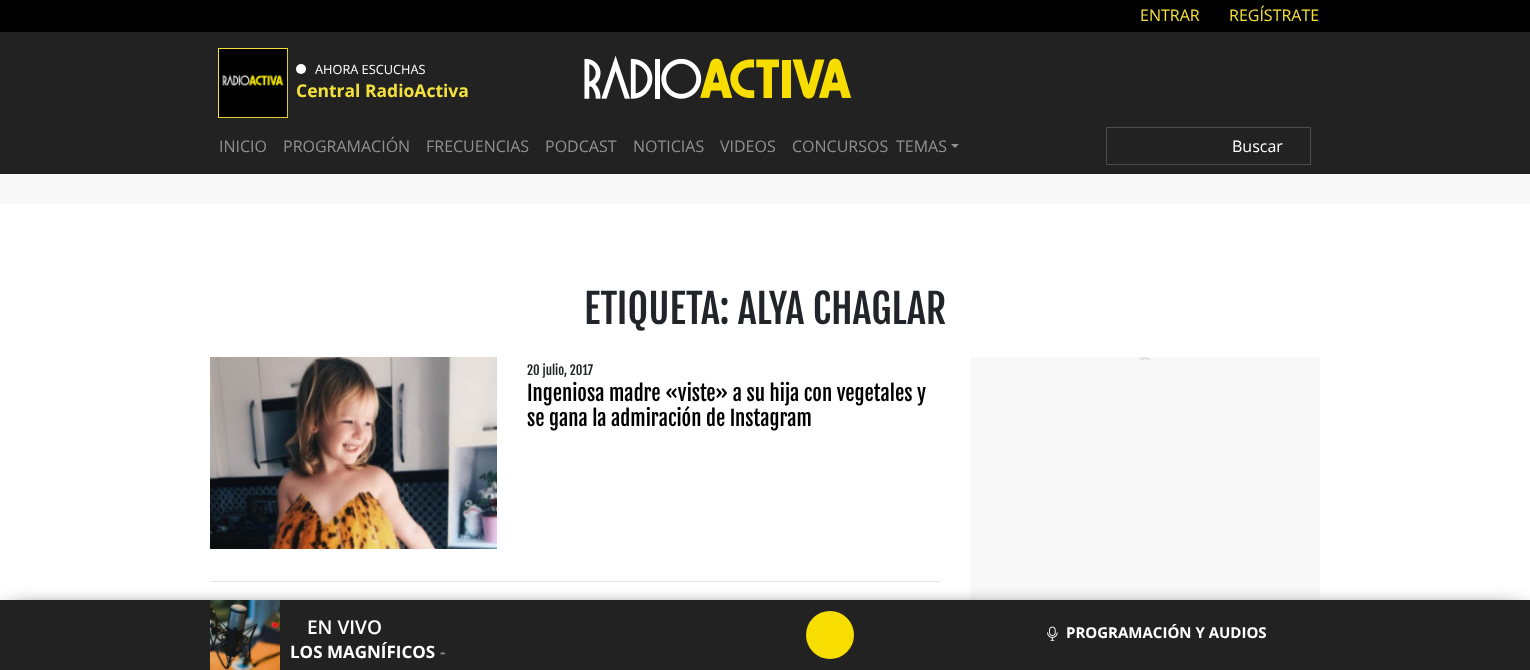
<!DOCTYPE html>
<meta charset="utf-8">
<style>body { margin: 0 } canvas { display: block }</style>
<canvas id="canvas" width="1530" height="670"></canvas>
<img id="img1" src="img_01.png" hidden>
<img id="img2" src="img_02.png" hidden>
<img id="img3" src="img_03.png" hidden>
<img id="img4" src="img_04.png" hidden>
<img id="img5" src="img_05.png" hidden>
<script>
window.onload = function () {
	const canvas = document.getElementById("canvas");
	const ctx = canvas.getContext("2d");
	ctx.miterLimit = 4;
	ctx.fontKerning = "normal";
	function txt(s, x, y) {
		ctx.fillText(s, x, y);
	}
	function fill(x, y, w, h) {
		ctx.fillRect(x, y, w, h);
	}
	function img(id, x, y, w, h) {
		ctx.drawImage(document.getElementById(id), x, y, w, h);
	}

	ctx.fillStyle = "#FFFFFF";
	fill(0, 0, 1530, 670);
	ctx.fillStyle = "#222222";
	fill(0, 32, 1530, 142);
	ctx.fillStyle = "#000000";
	fill(0, 0, 1530, 32);
	ctx.strokeStyle = "#F3E03C";
	ctx.strokeRect(218.5, 48.5, 69, 69);
	img("img1", 219, 49, 69, 69);
	ctx.fillStyle = "#FFFFFF";
	ctx.beginPath();
	ctx.arc(301, 69, 5, 0, Math.PI * 2);
	ctx.fill();
	img("img2", 584, 55, 268, 44);
	ctx.fillStyle = "#919191";
	ctx.beginPath();
	ctx.moveTo(951, 144);
	ctx.lineTo(959, 144);
	ctx.lineTo(955, 148);
	ctx.closePath();
	ctx.fill();
	ctx.strokeStyle = "#4C4C4C";
	ctx.strokeRect(1106.5, 127.5, 204, 37);
	ctx.fillStyle = "#F8F8F8";
	fill(0, 174, 1530, 30);
	img("img3", 210, 357, 287, 192);
	ctx.fillStyle = "#E6E6E6";
	fill(210, 581, 730, 1);
	ctx.fillStyle = "#F8F8F8";
	fill(970, 357, 350, 243);
	ctx.beginPath();
	ctx.moveTo(1140, 360);
	ctx.bezierCurveTo(1142.5, 357.5, 1147.5, 357.5, 1150, 360);
	ctx.strokeStyle = "#DFDFDF";
	ctx.lineWidth = 2;
	ctx.stroke();
	ctx.fillStyle = "rgba(0, 0, 0, 0.5)";
	ctx.filter = "blur(10px)";
	ctx.beginPath();
	ctx.rect(17, 610, 1510, 50);
	ctx.fill();
	ctx.filter = "none";
	ctx.filter = "blur(10px)";
	ctx.beginPath();
	ctx.rect(3, 610, 1510, 50);
	ctx.fill();
	ctx.filter = "none";
	ctx.fillStyle = "#222222";
	fill(0, 600, 1530, 70);
	img("img4", 210, 600, 70, 70);
	ctx.fillStyle = "#F8DE00";
	ctx.beginPath();
	ctx.arc(830, 635, 24, 0, Math.PI * 2);
	ctx.fill();
	img("img5", 1047, 626, 11, 15);
	ctx.font = "16px Open Sans";
	ctx.fillStyle = "#F3E03C";
	txt("ENTRAR", 1140, 21);
	txt("REGÍSTRATE", 1229, 21);
	ctx.font = "12.75px Open Sans";
	ctx.fillStyle = "#FFFFFF";
	txt("AHORA ESCUCHAS", 315, 74);
	ctx.font = "bold 17.5px Open Sans";
	ctx.fillStyle = "#F3E03C";
	txt("Central RadioActiva", 296, 97);
	ctx.font = "16px Open Sans";
	ctx.fillStyle = "#919191";
	txt("INICIO", 219, 152);
	txt("PROGRAMACIÓN", 283, 152);
	txt("FRECUENCIAS", 426, 152);
	txt("PODCAST", 545, 152);
	txt("NOTICIAS", 633, 152);
	txt("VIDEOS", 720, 152);
	txt("CONCURSOS", 792, 152);
	txt("TEMAS", 896, 152);
	ctx.fillStyle = "#FFFFFF";
	txt("Buscar", 1232, 152);
	ctx.font = "40px Fjalla One";
	ctx.fillStyle = "#212529";
	txt("ETIQUETA: ALYA CHAGLAR", 584, 324);
	ctx.font = "12.75px Fjalla One";
	txt("20 julio, 2017", 527, 375);
	ctx.font = "20.75px Fjalla One";
	ctx.fillStyle = "#000000";
	txt("Ingeniosa madre «viste» a su hija con vegetales y", 527, 401);
	txt("se gana la admiración de Instagram", 527, 426);
	ctx.font = "600 19px Open Sans";
	ctx.fillStyle = "#FFFFFF";
	txt("EN VIVO", 307, 634);
	ctx.font = "bold 17px Open Sans";
	txt("LOS MAGNÍFICOS", 290, 658);
	ctx.font = "600 17px Open Sans";
	ctx.fillStyle = "#919191";
	txt("-", 440, 658);
	ctx.font = "bold 15px Open Sans";
	ctx.fillStyle = "#FFFFFF";
	txt("PROGRAMACIÓN Y AUDIOS", 1066, 638);
};
</script>
